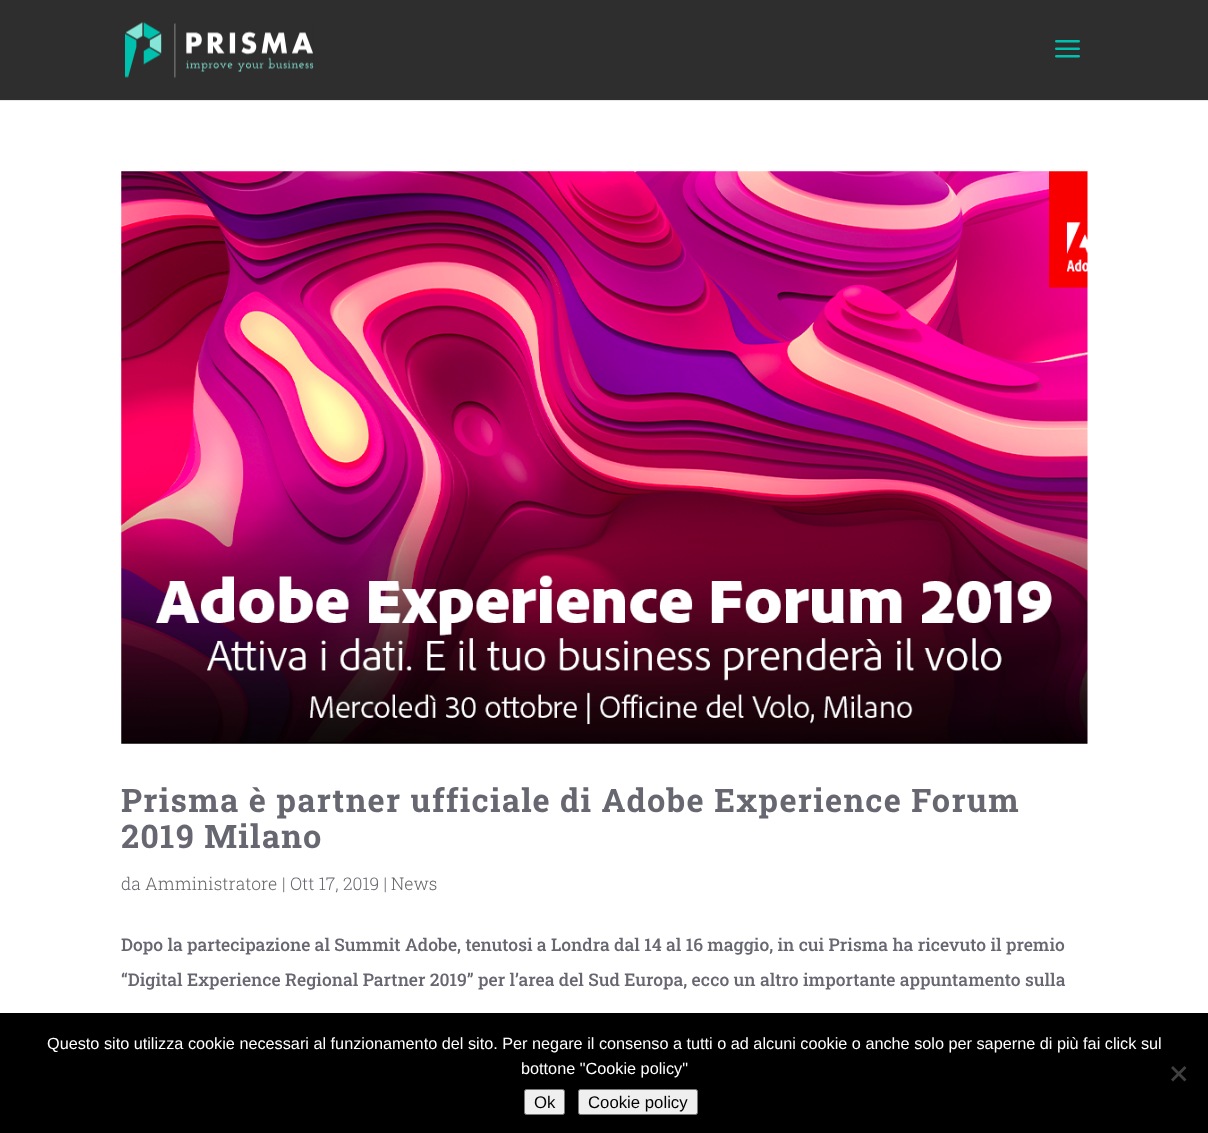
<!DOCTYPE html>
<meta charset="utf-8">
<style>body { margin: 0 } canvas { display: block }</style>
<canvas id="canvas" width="1208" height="1133"></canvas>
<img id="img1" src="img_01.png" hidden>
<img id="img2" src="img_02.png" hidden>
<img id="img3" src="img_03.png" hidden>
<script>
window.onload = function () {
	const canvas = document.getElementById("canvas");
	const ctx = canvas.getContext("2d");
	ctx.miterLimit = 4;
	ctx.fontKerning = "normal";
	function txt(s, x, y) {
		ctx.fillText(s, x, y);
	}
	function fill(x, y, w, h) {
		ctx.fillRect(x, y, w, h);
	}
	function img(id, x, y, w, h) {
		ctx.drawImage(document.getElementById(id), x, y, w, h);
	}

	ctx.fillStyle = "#FFFFFF";
	fill(0, 0, 1208, 1133);
	ctx.fillStyle = "#E6E6E6";
	ctx.beginPath();
	ctx.moveTo(0, 100);
	ctx.lineTo(0, 101);
	ctx.lineTo(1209, 101);
	ctx.lineTo(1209, 1);
	ctx.lineTo(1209, 100);
	ctx.closePath();
	ctx.fill();
	ctx.fillStyle = "#2E2E2E";
	fill(0, 0, 1208, 100);
	img("img1", 125, 22, 189, 56);
	img("img2", 1055, 40, 25, 18);
	img("img3", 121, 171, 967, 573);
	ctx.fillStyle = "#000000";
	fill(0, 1013, 1208, 120);
	ctx.fillStyle = "#404040";
	ctx.beginPath();
	ctx.moveTo(1184.5, 1066);
	ctx.lineTo(1186.5, 1068);
	ctx.lineTo(1173, 1081.5);
	ctx.lineTo(1171, 1079.5);
	ctx.closePath();
	ctx.fill();
	ctx.beginPath();
	ctx.moveTo(1171, 1068);
	ctx.lineTo(1173, 1066);
	ctx.lineTo(1186.5, 1079.5);
	ctx.lineTo(1184.5, 1081.5);
	ctx.closePath();
	ctx.fill();
	ctx.fillStyle = "#EFEFEF";
	ctx.beginPath();
	ctx.roundRect(524.5, 1089.5, 40, 25, 2);
	ctx.fill();
	ctx.strokeStyle = "#767676";
	ctx.stroke();
	ctx.beginPath();
	ctx.roundRect(578.5, 1089.5, 119, 25, 2);
	ctx.fill();
	ctx.stroke();
	ctx.letterSpacing = "1.25px";
	ctx.font = "bold 32.5px Roboto Slab";
	ctx.fillStyle = "#676771";
	txt("Prisma è partner ufficiale di Adobe Experience Forum", 121, 812);
	txt("2019 Milano", 121, 848);
	ctx.letterSpacing = "0px";
	ctx.font = "300 17.5px Roboto Slab";
	txt("da", 121, 890);
	ctx.fillStyle = "#666666";
	txt("Amministratore", 145, 890);
	ctx.fillStyle = "#676771";
	txt("| Ott 17, 2019 |", 282, 890);
	ctx.fillStyle = "#666666";
	txt("News", 391, 890);
	ctx.font = "500 17.5px Roboto Slab";
	ctx.fillStyle = "#676771";
	txt("Dopo la partecipazione al Summit Adobe, tenutosi a Londra dal 14 al 16 maggio, in cui Prisma ha ricevuto il premio", 121, 951);
	txt("“Digital Experience Regional Partner 2019” per l’area del Sud Europa, ecco un altro importante appuntamento sulla", 121, 986);
	ctx.font = "16.25px Liberation Sans";
	ctx.fillStyle = "#FFFFFF";
	txt("Questo sito utilizza cookie necessari al funzionamento del sito. Per negare il consenso a tutti o ad alcuni cookie o anche solo per saperne di più fai click sul", 47, 1049);
	txt("bottone \"Cookie policy\"", 521, 1074);
	ctx.font = "16.75px Liberation Sans";
	ctx.fillStyle = "#000000";
	txt("Ok", 534, 1108);
	txt("Cookie policy", 588, 1108);
};
</script>
